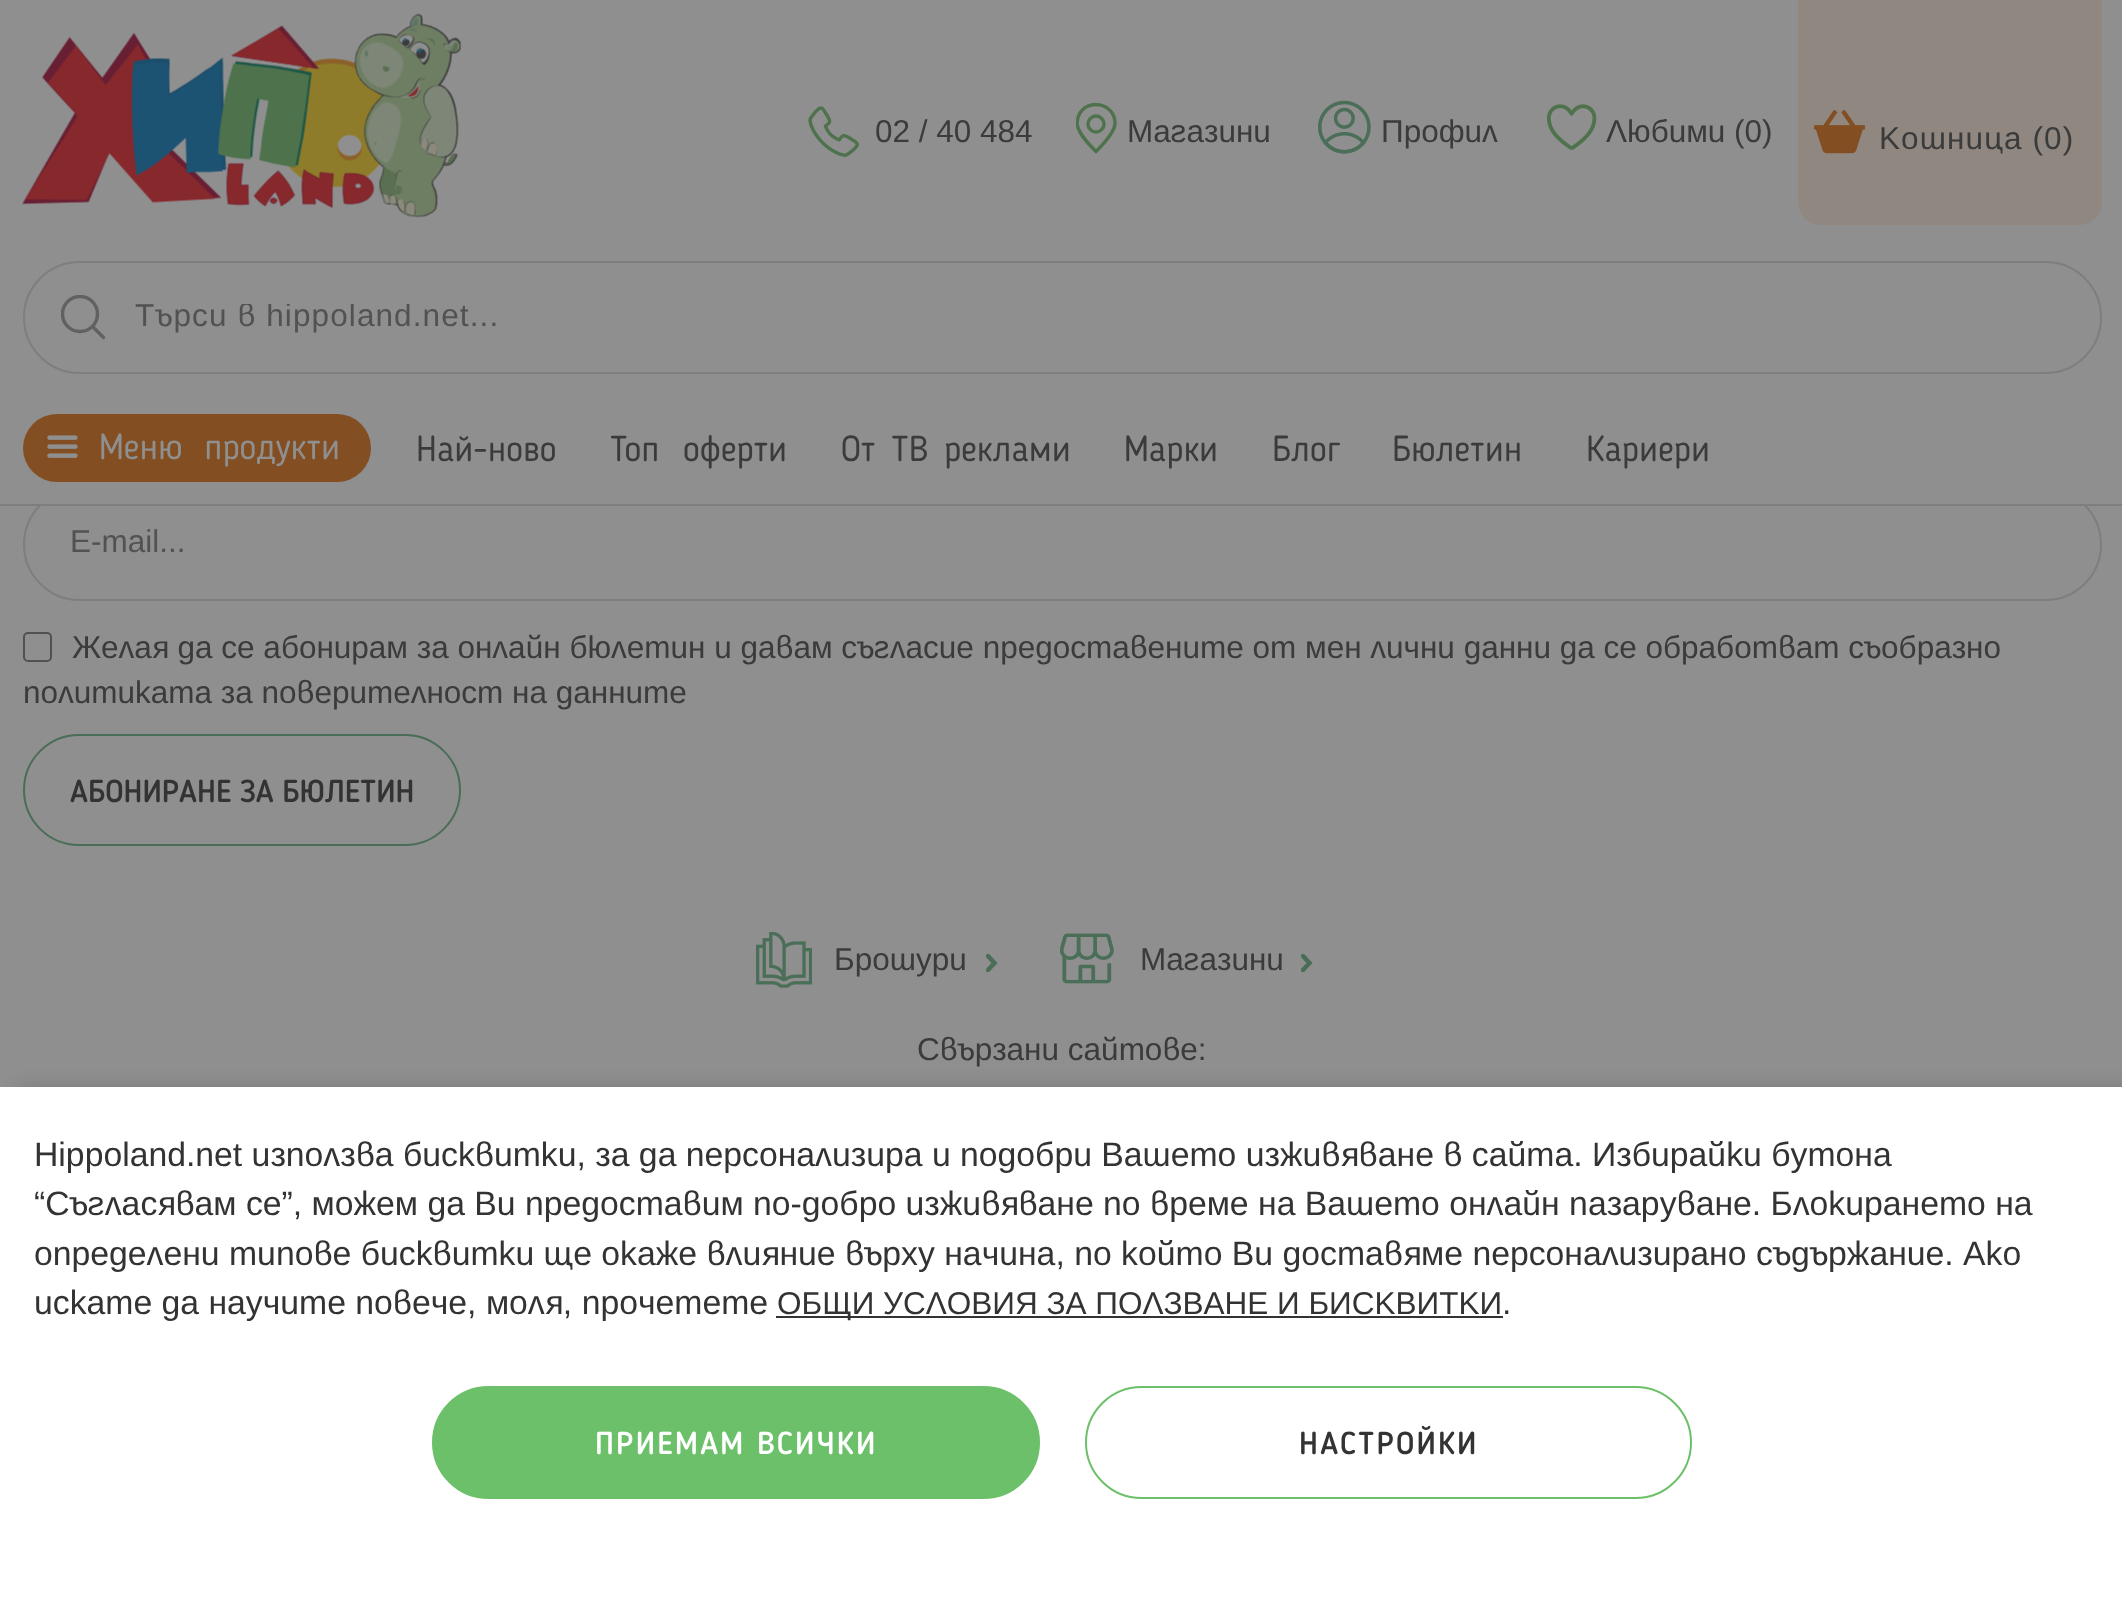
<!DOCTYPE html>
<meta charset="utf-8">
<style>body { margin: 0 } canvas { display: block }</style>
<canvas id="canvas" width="2122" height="1599"></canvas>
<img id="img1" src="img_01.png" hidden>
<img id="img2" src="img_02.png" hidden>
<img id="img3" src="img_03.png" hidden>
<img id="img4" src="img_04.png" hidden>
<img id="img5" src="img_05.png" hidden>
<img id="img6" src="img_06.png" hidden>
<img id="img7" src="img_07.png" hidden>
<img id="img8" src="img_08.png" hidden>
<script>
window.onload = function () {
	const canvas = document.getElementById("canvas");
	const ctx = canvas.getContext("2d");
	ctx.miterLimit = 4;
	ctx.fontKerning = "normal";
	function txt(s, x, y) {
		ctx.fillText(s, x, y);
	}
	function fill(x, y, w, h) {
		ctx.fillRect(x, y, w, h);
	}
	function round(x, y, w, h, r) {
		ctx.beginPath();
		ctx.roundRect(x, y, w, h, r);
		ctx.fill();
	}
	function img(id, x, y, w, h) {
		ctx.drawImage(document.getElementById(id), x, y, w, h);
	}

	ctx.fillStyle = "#8F8F8F";
	fill(0, 0, 2122, 1599);
	img("img1", 22, 13, 440, 205);
	img("img2", 808, 106, 51, 51);
	ctx.save();
	ctx.beginPath();
	ctx.rect(1076, 101, 42, 54);
	ctx.clip();
	ctx.beginPath();
	ctx.moveTo(1115, 123);
	ctx.bezierCurveTo(1115, 132, 1102, 145.5, 1096, 151.5);
	ctx.bezierCurveTo(1089, 144.5, 1080, 135.5, 1077.5, 126);
	ctx.bezierCurveTo(1076.5, 122.5, 1077.5, 119, 1078.5, 116);
	ctx.bezierCurveTo(1086.5, 97, 1115, 103, 1115, 123);
	ctx.closePath();
	ctx.strokeStyle = "#4D724C";
	ctx.lineWidth = 3.4;
	ctx.stroke();
	ctx.restore();
	ctx.beginPath();
	ctx.arc(1096, 124, 8, 0, Math.PI * 2);
	ctx.strokeStyle = "#4D724C";
	ctx.lineWidth = 3.4;
	ctx.stroke();
	img("img3", 1318, 100, 53, 54);
	img("img4", 1546, 104, 51, 46);
	ctx.fillStyle = "#8F8780";
	ctx.beginPath();
	ctx.roundRect(1798, 0, 304, 225, [0, 0, 23, 23]);
	ctx.fill();
	img("img5", 1814, 110, 51, 44);
	ctx.beginPath();
	ctx.roundRect(24, 262, 2077, 111, 55.5);
	ctx.strokeStyle = "#7E7E7E";
	ctx.lineWidth = 2;
	ctx.stroke();
	ctx.save();
	ctx.beginPath();
	ctx.rect(61, 295, 45, 45);
	ctx.clip();
	ctx.beginPath();
	ctx.arc(80, 314, 17.5, 0, Math.PI * 2);
	ctx.strokeStyle = "#616161";
	ctx.lineWidth = 3.4;
	ctx.stroke();
	ctx.restore();
	ctx.beginPath();
	ctx.moveTo(93.5, 327.5);
	ctx.lineTo(103.5, 337.5);
	ctx.strokeStyle = "#616161";
	ctx.lineWidth = 3.4;
	ctx.lineCap = "round";
	ctx.stroke();
	ctx.beginPath();
	ctx.roundRect(24, 489, 2077, 111, 55.5);
	ctx.strokeStyle = "#7E7E7E";
	ctx.lineWidth = 2;
	ctx.stroke();
	ctx.fillStyle = "#8F8F8F";
	fill(40, 488, 2045, 16);
	ctx.fillStyle = "#7E7E7E";
	fill(0, 504, 2122, 2);
	ctx.fillStyle = "#824E22";
	round(23, 414, 348, 68, 34);
	img("img6", 47, 435, 31, 23);
	ctx.beginPath();
	ctx.roundRect(24, 633, 27, 28, 4);
	ctx.strokeStyle = "#515151";
	ctx.stroke();
	ctx.beginPath();
	ctx.roundRect(24, 735, 436, 110, 55);
	ctx.strokeStyle = "#4A6D57";
	ctx.stroke();
	img("img7", 756, 932, 56, 56);
	ctx.save();
	ctx.beginPath();
	ctx.rect(986, 954, 13, 18);
	ctx.clip();
	ctx.beginPath();
	ctx.moveTo(988, 956);
	ctx.lineTo(994.5, 963);
	ctx.lineTo(988, 970);
	ctx.lineWidth = 4.5;
	ctx.stroke();
	ctx.restore();
	img("img8", 1060, 933, 54, 51);
	ctx.save();
	ctx.beginPath();
	ctx.rect(1301, 954, 13, 18);
	ctx.clip();
	ctx.beginPath();
	ctx.moveTo(1303, 956);
	ctx.lineTo(1309.5, 963);
	ctx.lineTo(1303, 970);
	ctx.lineWidth = 4.5;
	ctx.stroke();
	ctx.restore();
	ctx.fillStyle = "rgba(0, 0, 0, 0.15)";
	ctx.filter = "blur(9px)";
	ctx.beginPath();
	ctx.rect(18, 1087, 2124, 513);
	ctx.fill();
	ctx.filter = "none";
	ctx.fillStyle = "#FFFFFF";
	fill(0, 1087, 2122, 512);
	ctx.fillStyle = "#333333";
	fill(776, 1316, 727, 2);
	ctx.fillStyle = "#6DC06A";
	ctx.beginPath();
	ctx.roundRect(433, 1387, 606, 111, 55.5);
	ctx.fill();
	ctx.strokeStyle = "#6DC06A";
	ctx.stroke();
	ctx.beginPath();
	ctx.roundRect(1086, 1387, 605, 111, 55.5);
	ctx.stroke();
	ctx.font = "31.5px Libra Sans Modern";
	ctx.fillStyle = "#3B3B3B";
	txt("02 / 40 484", 875, 142);
	txt("Магазини", 1127, 142);
	txt("Профил", 1381, 142);
	txt("Любими (0)", 1606, 142);
	ctx.letterSpacing = "1.1px";
	txt("Кошница (0)", 1879, 149);
	ctx.save();
	ctx.beginPath();
	ctx.rect(135, 304, 1910, 31);
	ctx.clip();
	ctx.fillStyle = "#525252";
	txt("Търси в hippoland.net...", 135, 326);
	ctx.restore();
	ctx.letterSpacing = "0px";
	ctx.wordSpacing = "11px";
	ctx.font = "200 36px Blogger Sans";
	ctx.fillStyle = "#8F8F8F";
	txt("Меню продукти", 99, 459);
	ctx.wordSpacing = "0px";
	ctx.fillStyle = "#3B3B3B";
	txt("Най-ново", 416, 461);
	ctx.wordSpacing = "13px";
	txt("Топ оферти", 610, 461);
	ctx.wordSpacing = "5px";
	txt("От ТВ реклами", 841, 461);
	ctx.wordSpacing = "0px";
	txt("Марки", 1124, 461);
	txt("Блог", 1272, 461);
	txt("Бюлетин", 1392, 461);
	txt("Кариери", 1586, 461);
	ctx.font = "31.5px Libra Sans Modern";
	ctx.fillStyle = "#525252";
	txt("E-mail...", 70, 552);
	ctx.fillStyle = "#3B3B3B";
	txt("Желая да се абонирам за онлайн бюлетин и давам съгласие предоставените от мен лични данни да се обработват съобразно", 72, 658);
	txt("политиката за поверителност на данните", 23, 703);
	ctx.wordSpacing = "-1px";
	ctx.font = "500 31.5px Blogger Sans";
	ctx.fillStyle = "#333333";
	txt("АБОНИРАНЕ ЗА БЮЛЕТИН", 70, 802);
	ctx.wordSpacing = "0px";
	ctx.font = "31.5px Libra Sans Modern";
	ctx.fillStyle = "#3B3B3B";
	txt("Брошури", 834, 970);
	txt("Магазини", 1140, 970);
	txt("Свързани сайтове:", 917, 1060);
	ctx.font = "33.75px Libra Sans Modern";
	ctx.fillStyle = "#333333";
	txt("Hippoland.net използва бисквитки, за да персонализира и подобри Вашето изживяване в сайта. Избирайки бутона", 34, 1166);
	txt("“Съгласявам се”, можем да Ви предоставим по-добро изживяване по време на Вашето онлайн пазаруване. Блокирането на", 34, 1215);
	txt("определени типове бисквитки ще окаже влияние върху начина, по който Ви доставяме персонализирано съдържание. Ако", 34, 1265);
	txt("искате да научите повече, моля, прочетете", 34, 1314);
	ctx.font = "31.5px Libra Sans Modern";
	txt("ОБЩИ УСЛОВИЯ ЗА ПОЛЗВАНЕ И БИСКВИТКИ", 777, 1314);
	ctx.font = "33.75px Libra Sans Modern";
	txt(".", 1502, 1314);
	ctx.letterSpacing = "2.25px";
	ctx.font = "500 31.5px Blogger Sans";
	ctx.fillStyle = "#FFFFFF";
	txt("ПРИЕМАМ ВСИЧКИ", 595, 1454);
	ctx.fillStyle = "#333333";
	txt("НАСТРОЙКИ", 1299, 1454);
};
</script>
